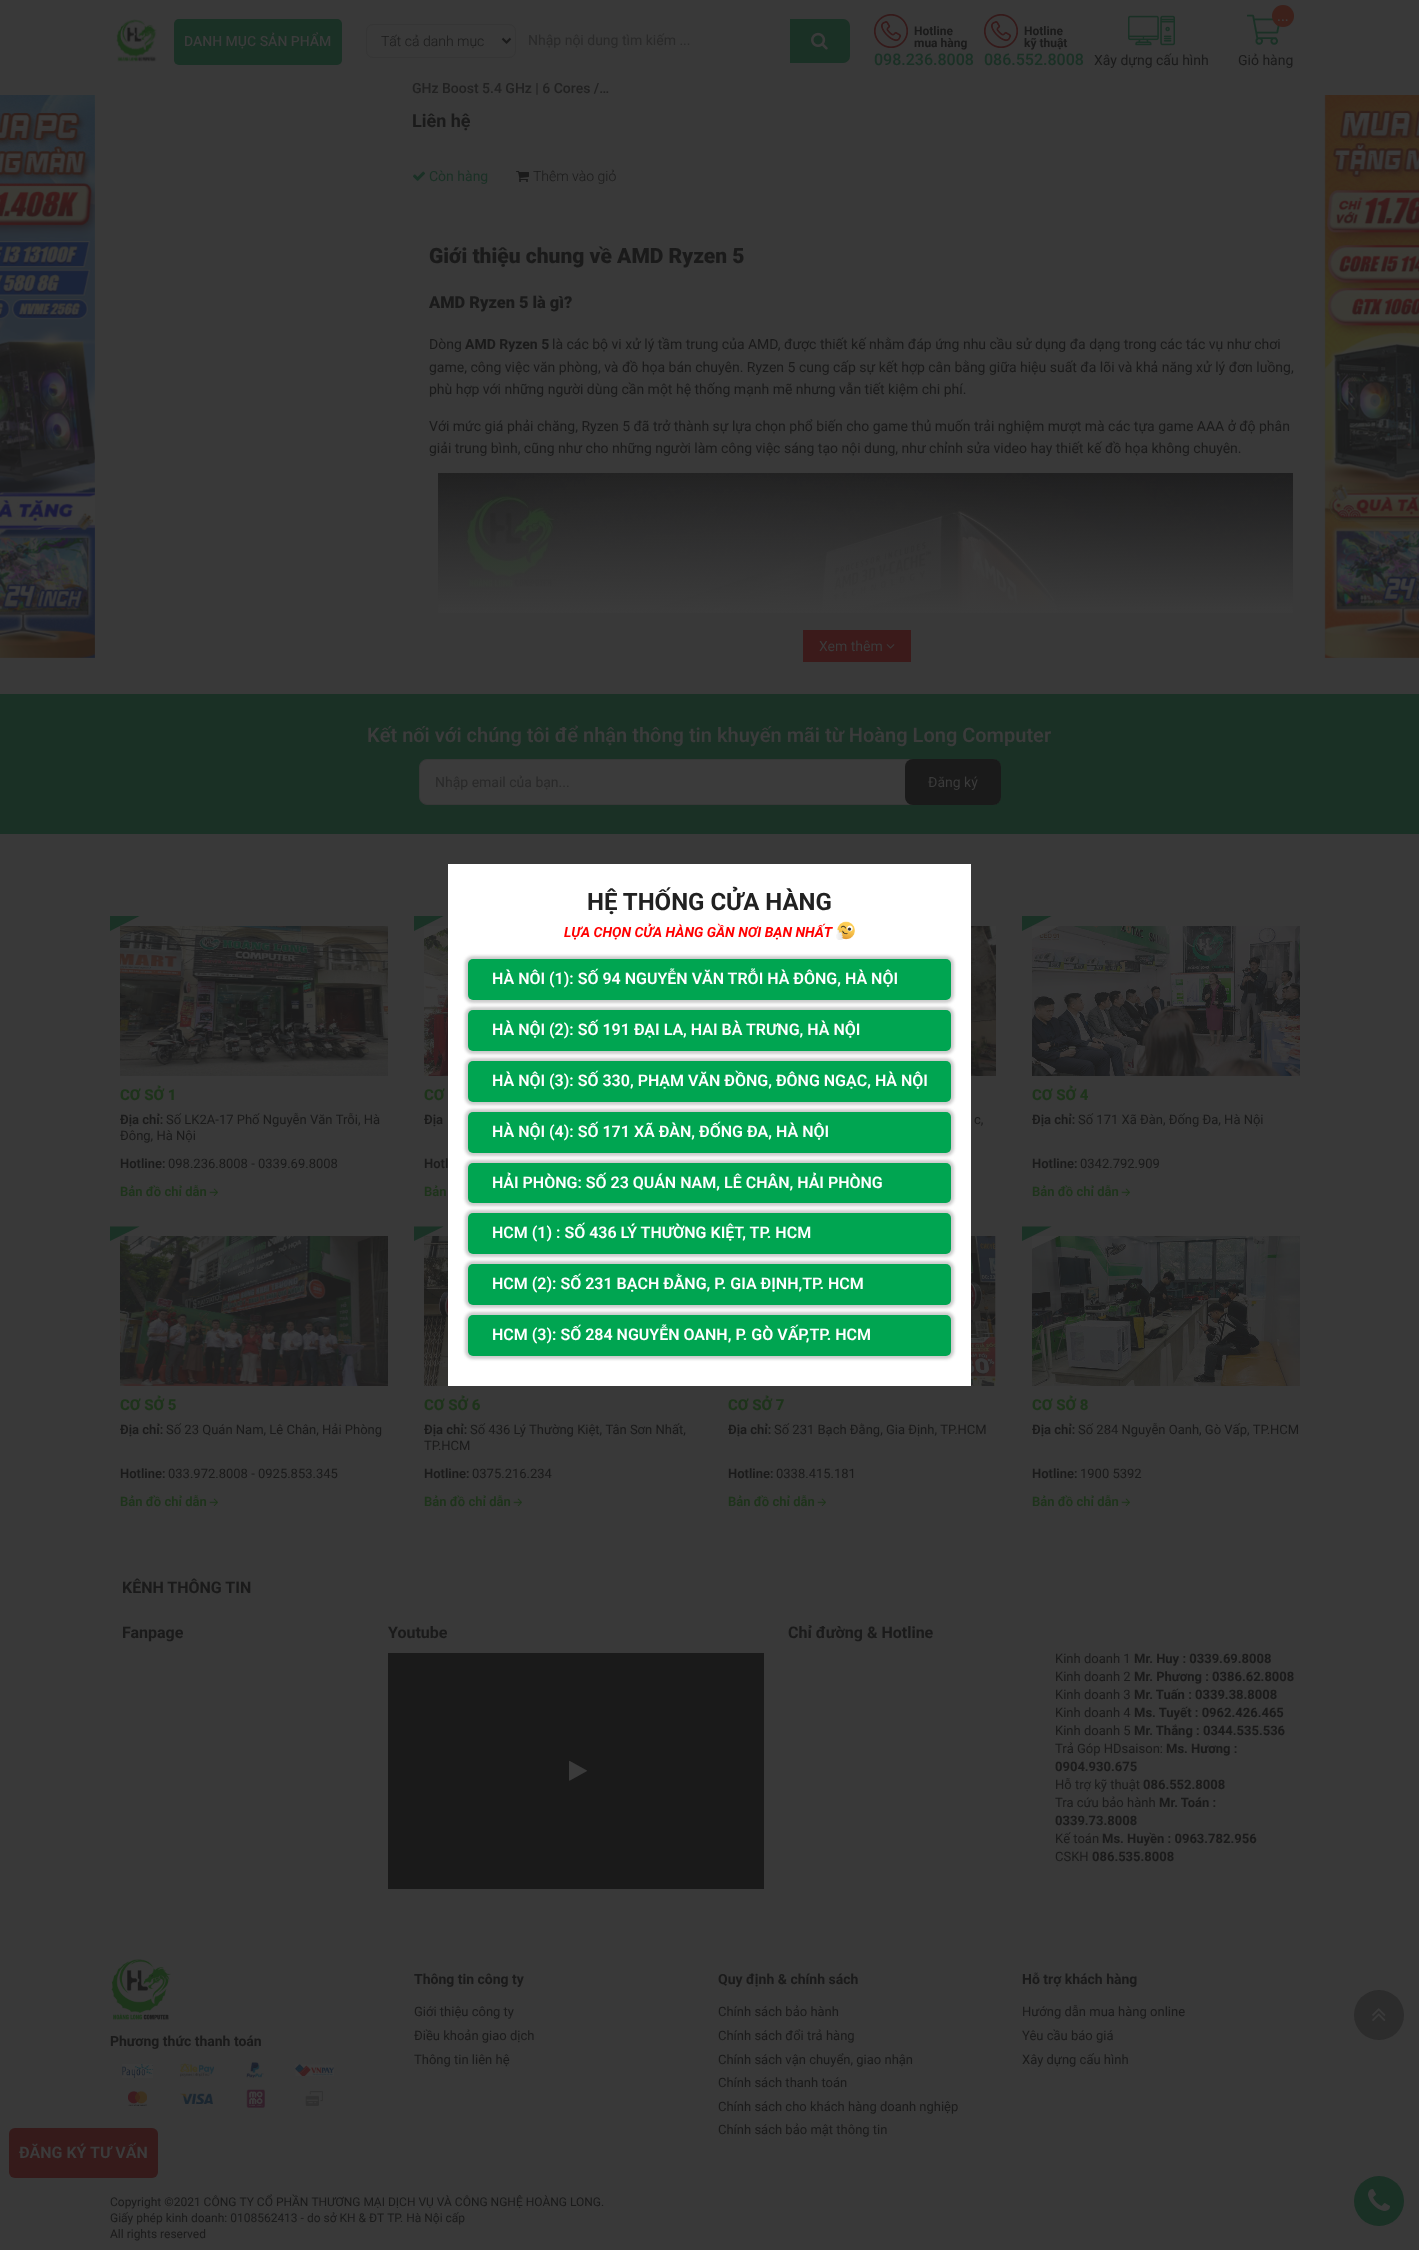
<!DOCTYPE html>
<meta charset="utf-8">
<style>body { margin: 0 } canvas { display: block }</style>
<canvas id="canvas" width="1419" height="2250"></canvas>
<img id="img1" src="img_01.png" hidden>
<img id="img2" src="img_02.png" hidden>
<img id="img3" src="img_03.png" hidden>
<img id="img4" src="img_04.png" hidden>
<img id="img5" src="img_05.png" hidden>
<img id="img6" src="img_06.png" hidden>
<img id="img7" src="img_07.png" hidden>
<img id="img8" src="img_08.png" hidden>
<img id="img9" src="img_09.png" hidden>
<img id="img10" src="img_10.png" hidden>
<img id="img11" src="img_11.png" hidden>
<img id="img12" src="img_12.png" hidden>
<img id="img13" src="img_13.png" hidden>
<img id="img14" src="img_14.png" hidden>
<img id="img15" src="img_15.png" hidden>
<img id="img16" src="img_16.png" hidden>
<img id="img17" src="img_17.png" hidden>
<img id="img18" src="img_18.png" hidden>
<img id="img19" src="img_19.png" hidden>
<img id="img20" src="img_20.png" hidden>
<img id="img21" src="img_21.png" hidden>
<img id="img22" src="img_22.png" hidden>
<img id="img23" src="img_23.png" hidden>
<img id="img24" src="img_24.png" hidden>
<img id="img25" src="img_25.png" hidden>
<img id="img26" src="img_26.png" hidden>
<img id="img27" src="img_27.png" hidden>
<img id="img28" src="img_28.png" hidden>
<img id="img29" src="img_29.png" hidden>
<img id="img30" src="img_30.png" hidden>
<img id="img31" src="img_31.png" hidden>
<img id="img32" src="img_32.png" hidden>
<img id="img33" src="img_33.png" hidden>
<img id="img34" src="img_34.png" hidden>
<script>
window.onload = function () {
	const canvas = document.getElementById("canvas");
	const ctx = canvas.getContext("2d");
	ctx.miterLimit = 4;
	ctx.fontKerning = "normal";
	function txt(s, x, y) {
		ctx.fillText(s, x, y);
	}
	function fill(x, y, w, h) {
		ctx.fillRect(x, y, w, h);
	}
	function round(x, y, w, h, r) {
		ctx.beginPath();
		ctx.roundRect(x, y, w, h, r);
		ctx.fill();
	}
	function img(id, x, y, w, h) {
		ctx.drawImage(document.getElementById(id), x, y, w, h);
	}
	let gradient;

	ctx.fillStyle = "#393939";
	fill(0, 0, 1419, 2250);
	img("img1", 116, 19, 41, 43);
	ctx.fillStyle = "#1A3025";
	round(174, 19, 168, 46, 5);
	ctx.beginPath();
	ctx.roundRect(366.5, 24.5, 149, 33, 6.5);
	ctx.strokeStyle = "#353535";
	ctx.stroke();
	ctx.beginPath();
	ctx.moveTo(502.5, 38.5);
	ctx.lineTo(506.5, 42.5);
	ctx.lineTo(510.5, 38.5);
	ctx.strokeStyle = "#1A1A1A";
	ctx.lineWidth = 2;
	ctx.stroke();
	ctx.beginPath();
	ctx.roundRect(790, 19, 60, 44, [0, 7, 7, 0]);
	ctx.fill();
	img("img2", 811, 32, 17, 18);
	img("img3", 874, 14, 34, 34);
	img("img3", 984, 14, 34, 34);
	img("img4", 1128, 15, 47, 31);
	img("img5", 1247, 14, 33, 31);
	ctx.fillStyle = "#3B201A";
	ctx.beginPath();
	ctx.arc(1283, 16, 11, 0, Math.PI * 2);
	ctx.fill();
	img("img6", 413, 171, 12, 10);
	img("img7", 516, 171, 13, 11);
	img("img8", 438, 473, 855, 140);
	gradient = ctx.createLinearGradient(882, 454, 882, 614);
	gradient.addColorStop(0, "rgba(59, 59, 59, 0)");
	gradient.addColorStop(1, "#3B3B3B");
	ctx.fillStyle = gradient;
	fill(438, 473, 855, 140);
	ctx.fillStyle = "#3B1A1A";
	fill(803, 630, 108, 32);
	img("img9", 886, 644, 9, 5);
	img("img10", 0, 95, 95, 563);
	img("img11", 1324, 95, 95, 563);
	ctx.fillStyle = "#1A3025";
	fill(0, 694, 1419, 140);
	ctx.fillStyle = "#3B3B3B";
	ctx.beginPath();
	ctx.roundRect(419.5, 759.5, 581, 45, 7.5);
	ctx.fill();
	ctx.strokeStyle = "#373737";
	ctx.lineWidth = 1;
	ctx.stroke();
	ctx.fillStyle = "#1A1A1A";
	round(905, 759, 96, 46, 8);
	img("img12", 120, 926, 268, 150);
	ctx.fillStyle = "#1A3025";
	ctx.beginPath();
	ctx.moveTo(110, 931);
	ctx.lineTo(139.5, 916);
	ctx.lineTo(110, 916);
	ctx.closePath();
	ctx.fill();
	img("img13", 209, 1188, 9, 8);
	img("img14", 424, 926, 24, 150);
	ctx.beginPath();
	ctx.moveTo(414, 931);
	ctx.lineTo(443.5, 916);
	ctx.lineTo(414, 916);
	ctx.closePath();
	ctx.fill();
	img("img15", 971, 926, 25, 150);
	img("img16", 1032, 926, 268, 150);
	ctx.beginPath();
	ctx.moveTo(1022, 931);
	ctx.lineTo(1051.5, 916);
	ctx.lineTo(1022, 916);
	ctx.closePath();
	ctx.fill();
	img("img13", 1121, 1188, 9, 8);
	img("img17", 120, 1236, 268, 150);
	ctx.beginPath();
	ctx.moveTo(110, 1241);
	ctx.lineTo(110, 1226.5);
	ctx.lineTo(139.5, 1226.5);
	ctx.closePath();
	ctx.fill();
	img("img13", 209, 1498, 9, 8);
	img("img18", 424, 1236, 24, 150);
	ctx.beginPath();
	ctx.moveTo(414, 1241);
	ctx.lineTo(414, 1226.5);
	ctx.lineTo(443.5, 1226.5);
	ctx.closePath();
	ctx.fill();
	img("img19", 513, 1498, 9, 8);
	img("img20", 971, 1236, 25, 150);
	img("img19", 817, 1498, 9, 8);
	img("img21", 1032, 1236, 268, 150);
	ctx.beginPath();
	ctx.moveTo(1022, 1241);
	ctx.lineTo(1022, 1226.5);
	ctx.lineTo(1051.5, 1226.5);
	ctx.closePath();
	ctx.fill();
	img("img13", 1121, 1498, 9, 8);
	ctx.fillStyle = "#1A1A1A";
	fill(388, 1653, 376, 236);
	img("img22", 569, 1760, 18, 21);
	img("img23", 111, 1959, 60, 61);
	img("img24", 122, 2064, 31, 14);
	img("img25", 180, 2063, 34, 14);
	img("img26", 246, 2062, 18, 16);
	img("img27", 295, 2064, 39, 12);
	img("img28", 128, 2091, 19, 15);
	img("img29", 180, 2093, 33, 11);
	img("img30", 246, 2089, 19, 19);
	img("img31", 305, 2091, 18, 15);
	ctx.fillStyle = "#FFFFFF";
	fill(448, 864, 523, 522);
	img("img32", 836, 921, 19, 19);
	ctx.fillStyle = "#CCCCCC";
	ctx.filter = "blur(1.5px)";
	ctx.beginPath();
	ctx.roundRect(465, 956, 489, 47, 8);
	ctx.fill();
	ctx.filter = "none";
	ctx.fillStyle = "#00A551";
	round(468, 959, 483, 41, 5);
	ctx.fillStyle = "#CCCCCC";
	ctx.filter = "blur(1.5px)";
	ctx.beginPath();
	ctx.roundRect(465, 1007, 489, 47, 8);
	ctx.fill();
	ctx.filter = "none";
	ctx.fillStyle = "#00A551";
	round(468, 1010, 483, 41, 5);
	ctx.fillStyle = "#CCCCCC";
	ctx.filter = "blur(1.5px)";
	ctx.beginPath();
	ctx.roundRect(465, 1058, 489, 47, 8);
	ctx.fill();
	ctx.filter = "none";
	ctx.fillStyle = "#00A551";
	round(468, 1061, 483, 41, 5);
	ctx.fillStyle = "#CCCCCC";
	ctx.filter = "blur(1.5px)";
	ctx.beginPath();
	ctx.roundRect(465, 1109, 489, 47, 8);
	ctx.fill();
	ctx.filter = "none";
	ctx.fillStyle = "#00A551";
	round(468, 1112, 483, 41, 5);
	ctx.fillStyle = "#CCCCCC";
	ctx.filter = "blur(1.5px)";
	ctx.beginPath();
	ctx.roundRect(465, 1160, 489, 46, 8);
	ctx.fill();
	ctx.filter = "none";
	ctx.fillStyle = "#00A551";
	round(468, 1163, 483, 40, 5);
	ctx.fillStyle = "#CCCCCC";
	ctx.filter = "blur(1.5px)";
	ctx.beginPath();
	ctx.roundRect(465, 1210, 489, 47, 8);
	ctx.fill();
	ctx.filter = "none";
	ctx.fillStyle = "#00A551";
	round(468, 1213, 483, 41, 5);
	ctx.fillStyle = "#CCCCCC";
	ctx.filter = "blur(1.5px)";
	ctx.beginPath();
	ctx.roundRect(465, 1261, 489, 47, 8);
	ctx.fill();
	ctx.filter = "none";
	ctx.fillStyle = "#00A551";
	round(468, 1264, 483, 41, 5);
	ctx.fillStyle = "#CCCCCC";
	ctx.filter = "blur(1.5px)";
	ctx.beginPath();
	ctx.roundRect(465, 1312, 489, 47, 8);
	ctx.fill();
	ctx.filter = "none";
	ctx.fillStyle = "#00A551";
	round(468, 1315, 483, 41, 5);
	ctx.fillStyle = "#2C2C2C";
	ctx.beginPath();
	ctx.arc(1379, 2015, 25, 0, Math.PI * 2);
	ctx.fill();
	img("img33", 1372, 2008, 14, 13);
	ctx.fillStyle = "#351A1A";
	round(9, 2128, 149, 50, 6);
	ctx.fillStyle = "#1A3025";
	ctx.beginPath();
	ctx.arc(1379, 2201, 25, 0, Math.PI * 2);
	ctx.fill();
	img("img34", 1368, 2189, 22, 22);
	ctx.font = "500 14px Roboto";
	ctx.fillStyle = "#3B3B3B";
	txt("DANH MỤC SẢN PHẨM", 184, 46);
	ctx.font = "300 14px Roboto";
	ctx.fillStyle = "#1A1A1A";
	txt("Tất cả danh mục", 381, 46);
	ctx.font = "14px Roboto";
	ctx.fillStyle = "#292929";
	txt("Nhập nội dung tìm kiếm ...", 528, 45);
	ctx.font = "bold 12px Roboto";
	ctx.fillStyle = "#1A1A1A";
	txt("Hotline", 914, 35);
	txt("mua hàng", 914, 47);
	ctx.font = "500 16px Roboto";
	ctx.fillStyle = "#1A3025";
	txt("098.236.8008", 874, 65);
	ctx.font = "bold 12px Roboto";
	ctx.fillStyle = "#1A1A1A";
	txt("Hotline", 1024, 35);
	txt("kỹ thuật", 1024, 47);
	ctx.font = "500 16px Roboto";
	ctx.fillStyle = "#1A3025";
	txt("086.552.8008", 984, 65);
	ctx.font = "14px Roboto";
	ctx.fillStyle = "#1A1A1A";
	txt("Xây dựng cấu hình", 1094, 65);
	ctx.font = "500 14px Roboto";
	ctx.fillStyle = "#3B3B3B";
	txt("...", 1277, 21);
	ctx.font = "14px Roboto";
	ctx.fillStyle = "#1A1A1A";
	txt("Giỏ hàng", 1238, 65);
	ctx.font = "500 14px Roboto";
	ctx.fillStyle = "#212121";
	txt("GHz Boost 5.4 GHz | 6 Cores /…", 412, 93);
	ctx.font = "bold 18px Roboto";
	ctx.fillStyle = "#1A1A1A";
	txt("Liên hệ", 412, 127);
	ctx.font = "14px Roboto";
	ctx.fillStyle = "#1A3025";
	txt("Còn hàng", 429, 181);
	ctx.font = "300 14px Roboto";
	ctx.fillStyle = "#1A1A1A";
	txt("Thêm vào giỏ", 533, 181);
	ctx.font = "900 21px Roboto";
	txt("Giới thiệu chung về AMD Ryzen 5", 429, 263);
	ctx.font = "900 16.4px Roboto";
	txt("AMD Ryzen 5 là gì?", 429, 308);
	ctx.font = "14px Roboto";
	txt("Dòng", 429, 349);
	ctx.font = "bold 14px Roboto";
	txt("AMD Ryzen 5", 465, 349);
	ctx.font = "14px Roboto";
	txt("là các bộ vi xử lý tầm trung của AMD, được thiết kế nhằm đáp ứng nhu cầu sử dụng đa dạng trong các tác vụ như chơi", 552, 349);
	txt("game, công việc văn phòng, và đồ họa bán chuyên. Ryzen 5 cung cấp sự kết hợp cân bằng giữa hiệu suất đa lõi và khả năng xử lý đơn luồng,", 429, 372);
	txt("phù hợp với những người dùng cần một hệ thống mạnh mẽ nhưng vẫn tiết kiệm chi phí.", 429, 394);
	txt("Với mức giá phải chăng, Ryzen 5 đã trở thành sự lựa chọn phổ biến cho game thủ muốn trải nghiệm mượt mà các tựa game AAA ở độ phân", 429, 431);
	txt("giải trung bình, cũng như cho những người làm công việc sáng tạo nội dung, như chỉnh sửa video hay thiết kế đồ họa không chuyên.", 429, 453);
	ctx.fillStyle = "#3B3B3B";
	txt("Xem thêm", 819, 651);
	ctx.font = "600 20px Roboto";
	txt("Kết nối với chúng tôi để nhận thông tin khuyến mãi từ Hoàng Long Computer", 367, 742);
	ctx.font = "14px Roboto";
	ctx.fillStyle = "#292929";
	txt("Nhập email của bạn...", 435, 787);
	ctx.fillStyle = "#3B3B3B";
	txt("Đăng ký", 928, 787);
	ctx.font = "800 15px Roboto";
	ctx.fillStyle = "#1D331A";
	txt("CƠ SỞ 1", 120, 1100);
	ctx.font = "600 13px Roboto";
	ctx.fillStyle = "#1A1A1A";
	txt("Địa chỉ:", 120, 1124);
	ctx.font = "13px Roboto";
	txt("Số LK2A-17 Phố Nguyễn Văn Trỗi, Hà", 166, 1124);
	txt("Đông, Hà Nội", 120, 1140);
	ctx.font = "600 13px Roboto";
	txt("Hotline:", 120, 1168);
	ctx.font = "13px Roboto";
	txt("098.236.8008 - 0339.69.8008", 168, 1168);
	ctx.font = "600 13px Roboto";
	ctx.fillStyle = "#1D331A";
	txt("Bản đồ chỉ dẫn", 120, 1196);
	ctx.font = "800 15px Roboto";
	txt("CƠ", 424, 1100);
	ctx.font = "600 13px Roboto";
	ctx.fillStyle = "#1A1A1A";
	txt("Địa", 424, 1124);
	txt("Hotl", 424, 1168);
	ctx.fillStyle = "#1D331A";
	txt("Bản", 424, 1196);
	ctx.font = "13px Roboto";
	ctx.fillStyle = "#1A1A1A";
	txt("c,", 974, 1124);
	ctx.font = "800 15px Roboto";
	ctx.fillStyle = "#1D331A";
	txt("CƠ SỞ 4", 1032, 1100);
	ctx.font = "600 13px Roboto";
	ctx.fillStyle = "#1A1A1A";
	txt("Địa chỉ:", 1032, 1124);
	ctx.font = "13px Roboto";
	txt("Số 171 Xã Đàn, Đống Đa, Hà Nội", 1078, 1124);
	ctx.font = "600 13px Roboto";
	txt("Hotline:", 1032, 1168);
	ctx.font = "13px Roboto";
	txt("0342.792.909", 1080, 1168);
	ctx.font = "600 13px Roboto";
	ctx.fillStyle = "#1D331A";
	txt("Bản đồ chỉ dẫn", 1032, 1196);
	ctx.font = "800 15px Roboto";
	txt("CƠ SỞ 5", 120, 1410);
	ctx.font = "600 13px Roboto";
	ctx.fillStyle = "#1A1A1A";
	txt("Địa chỉ:", 120, 1434);
	ctx.font = "13px Roboto";
	txt("Số 23 Quán Nam, Lê Chân, Hải Phòng", 166, 1434);
	ctx.font = "600 13px Roboto";
	txt("Hotline:", 120, 1478);
	ctx.font = "13px Roboto";
	txt("033.972.8008 - 0925.853.345", 168, 1478);
	ctx.font = "600 13px Roboto";
	ctx.fillStyle = "#1D331A";
	txt("Bản đồ chỉ dẫn", 120, 1506);
	ctx.font = "800 15px Roboto";
	txt("CƠ SỞ 6", 424, 1410);
	ctx.font = "600 13px Roboto";
	ctx.fillStyle = "#1A1A1A";
	txt("Địa chỉ:", 424, 1434);
	ctx.font = "13px Roboto";
	txt("Số 436 Lý Thường Kiệt, Tân Sơn Nhất,", 470, 1434);
	txt("TP.HCM", 424, 1450);
	ctx.font = "600 13px Roboto";
	txt("Hotline:", 424, 1478);
	ctx.font = "13px Roboto";
	txt("0375.216.234", 472, 1478);
	ctx.font = "600 13px Roboto";
	ctx.fillStyle = "#1D331A";
	txt("Bản đồ chỉ dẫn", 424, 1506);
	ctx.font = "800 15px Roboto";
	txt("CƠ SỞ 7", 728, 1410);
	ctx.font = "600 13px Roboto";
	ctx.fillStyle = "#1A1A1A";
	txt("Địa chỉ:", 728, 1434);
	ctx.font = "13px Roboto";
	txt("Số 231 Bạch Đằng, Gia Định, TP.HCM", 774, 1434);
	ctx.font = "600 13px Roboto";
	txt("Hotline:", 728, 1478);
	ctx.font = "13px Roboto";
	txt("0338.415.181", 776, 1478);
	ctx.font = "600 13px Roboto";
	ctx.fillStyle = "#1D331A";
	txt("Bản đồ chỉ dẫn", 728, 1506);
	ctx.font = "800 15px Roboto";
	txt("CƠ SỞ 8", 1032, 1410);
	ctx.font = "600 13px Roboto";
	ctx.fillStyle = "#1A1A1A";
	txt("Địa chỉ:", 1032, 1434);
	ctx.font = "13px Roboto";
	txt("Số 284 Nguyễn Oanh, Gò Vấp, TP.HCM", 1078, 1434);
	ctx.font = "600 13px Roboto";
	txt("Hotline:", 1032, 1478);
	ctx.font = "13px Roboto";
	txt("1900 5392", 1080, 1478);
	ctx.font = "600 13px Roboto";
	ctx.fillStyle = "#1D331A";
	txt("Bản đồ chỉ dẫn", 1032, 1506);
	ctx.font = "bold 16px Roboto";
	ctx.fillStyle = "#1A1A1A";
	txt("KÊNH THÔNG TIN", 122, 1593);
	txt("Fanpage", 122, 1638);
	txt("Youtube", 388, 1638);
	txt("Chỉ đường & Hotline", 788, 1638);
	ctx.font = "13px Roboto";
	txt("Kinh doanh 1", 1055, 1663);
	ctx.font = "bold 13px Roboto";
	txt("Mr. Huy : 0339.69.8008", 1134, 1663);
	ctx.font = "13px Roboto";
	txt("Kinh doanh 2", 1055, 1681);
	ctx.font = "bold 13px Roboto";
	txt("Mr. Phương : 0386.62.8008", 1134, 1681);
	ctx.font = "13px Roboto";
	txt("Kinh doanh 3", 1055, 1699);
	ctx.font = "bold 13px Roboto";
	txt("Mr. Tuấn : 0339.38.8008", 1134, 1699);
	ctx.font = "13px Roboto";
	txt("Kinh doanh 4", 1055, 1717);
	ctx.font = "bold 13px Roboto";
	txt("Ms. Tuyết : 0962.426.465", 1134, 1717);
	ctx.font = "13px Roboto";
	txt("Kinh doanh 5", 1055, 1735);
	ctx.font = "bold 13px Roboto";
	txt("Mr. Thắng : 0344.535.536", 1134, 1735);
	ctx.font = "13px Roboto";
	txt("Trả Góp HDsaison:", 1055, 1753);
	ctx.font = "bold 13px Roboto";
	txt("Ms. Hương :", 1166, 1753);
	txt("0904.930.675", 1055, 1771);
	ctx.font = "13px Roboto";
	txt("Hỗ trợ kỹ thuật", 1055, 1789);
	ctx.font = "bold 13px Roboto";
	txt("086.552.8008", 1143, 1789);
	ctx.font = "13px Roboto";
	txt("Tra cứu bảo hành", 1055, 1807);
	ctx.font = "bold 13px Roboto";
	txt("Mr. Toán :", 1159, 1807);
	txt("0339.73.8008", 1055, 1825);
	ctx.font = "13px Roboto";
	txt("Kế toán", 1055, 1843);
	ctx.font = "bold 13px Roboto";
	txt("Ms. Huyền : 0963.782.956", 1102, 1843);
	ctx.font = "13px Roboto";
	txt("CSKH", 1055, 1861);
	ctx.font = "bold 13px Roboto";
	txt("086.535.8008", 1092, 1861);
	ctx.font = "bold 14px Roboto";
	txt("Phương thức thanh toán", 110, 2046);
	txt("Thông tin công ty", 414, 1984);
	ctx.font = "13px Roboto";
	txt("Giới thiệu công ty", 414, 2016);
	txt("Điều khoản giao dịch", 414, 2040);
	txt("Thông tin liên hệ", 414, 2064);
	ctx.font = "bold 14px Roboto";
	txt("Quy định & chính sách", 718, 1984);
	ctx.font = "13px Roboto";
	txt("Chính sách bảo hành", 718, 2016);
	txt("Chính sách đổi trả hàng", 718, 2040);
	txt("Chính sách vận chuyển, giao nhận", 718, 2064);
	txt("Chính sách thanh toán", 718, 2087);
	txt("Chính sách cho khách hàng doanh nghiệp", 718, 2111);
	txt("Chính sách bảo mật thông tin", 718, 2134);
	ctx.font = "bold 14px Roboto";
	txt("Hỗ trợ khách hàng", 1022, 1984);
	ctx.font = "13px Roboto";
	txt("Hướng dẫn mua hàng online", 1022, 2016);
	txt("Yêu cầu báo giá", 1022, 2040);
	txt("Xây dựng cấu hình", 1022, 2064);
	ctx.font = "12px Roboto";
	txt("Copyright ©2021 CÔNG TY CỔ PHẦN THƯƠNG MẠI DỊCH VỤ VÀ CÔNG NGHỆ HOÀNG LONG.", 110, 2206);
	txt("Giấy phép kinh doanh: 0108562413 - do sở KH & ĐT TP. Hà Nội cấp", 110, 2222);
	txt("All rights reserved", 110, 2238);
	ctx.font = "bold 24px Roboto";
	ctx.fillStyle = "#212121";
	txt("HỆ THỐNG CỬA HÀNG", 587, 910);
	ctx.font = "italic bold 14px Roboto";
	ctx.fillStyle = "#FF0000";
	txt("LỰA CHỌN CỬA HÀNG GẦN NƠI BẠN NHẤT", 564, 937);
	ctx.font = "600 16px Roboto";
	ctx.fillStyle = "#FFFFFF";
	txt("HÀ NÔI (1): SỐ 94 NGUYỄN VĂN TRỖI HÀ ĐÔNG, HÀ NỘI", 492, 984);
	txt("HÀ NỘI (2): SỐ 191 ĐẠI LA, HAI BÀ TRƯNG, HÀ NỘI", 492, 1035);
	txt("HÀ NỘI (3): SỐ 330, PHẠM VĂN ĐỒNG, ĐÔNG NGẠC, HÀ NỘI", 492, 1086);
	txt("HÀ NỘI (4): SỐ 171 XÃ ĐÀN, ĐỐNG ĐA, HÀ NỘI", 492, 1137);
	txt("HẢI PHÒNG: SỐ 23 QUÁN NAM, LÊ CHÂN, HẢI PHÒNG", 492, 1188);
	txt("HCM (1) : SỐ 436 LÝ THƯỜNG KIỆT, TP. HCM", 492, 1238);
	txt("HCM (2): SỐ 231 BẠCH ĐẰNG, P. GIA ĐỊNH,TP. HCM", 492, 1289);
	txt("HCM (3): SỐ 284 NGUYỄN OANH, P. GÒ VẤP,TP. HCM", 492, 1340);
	ctx.font = "bold 16px Roboto";
	ctx.fillStyle = "#3B3B3B";
	txt("ĐĂNG KÝ TƯ VẤN", 19, 2158);
};
</script>
